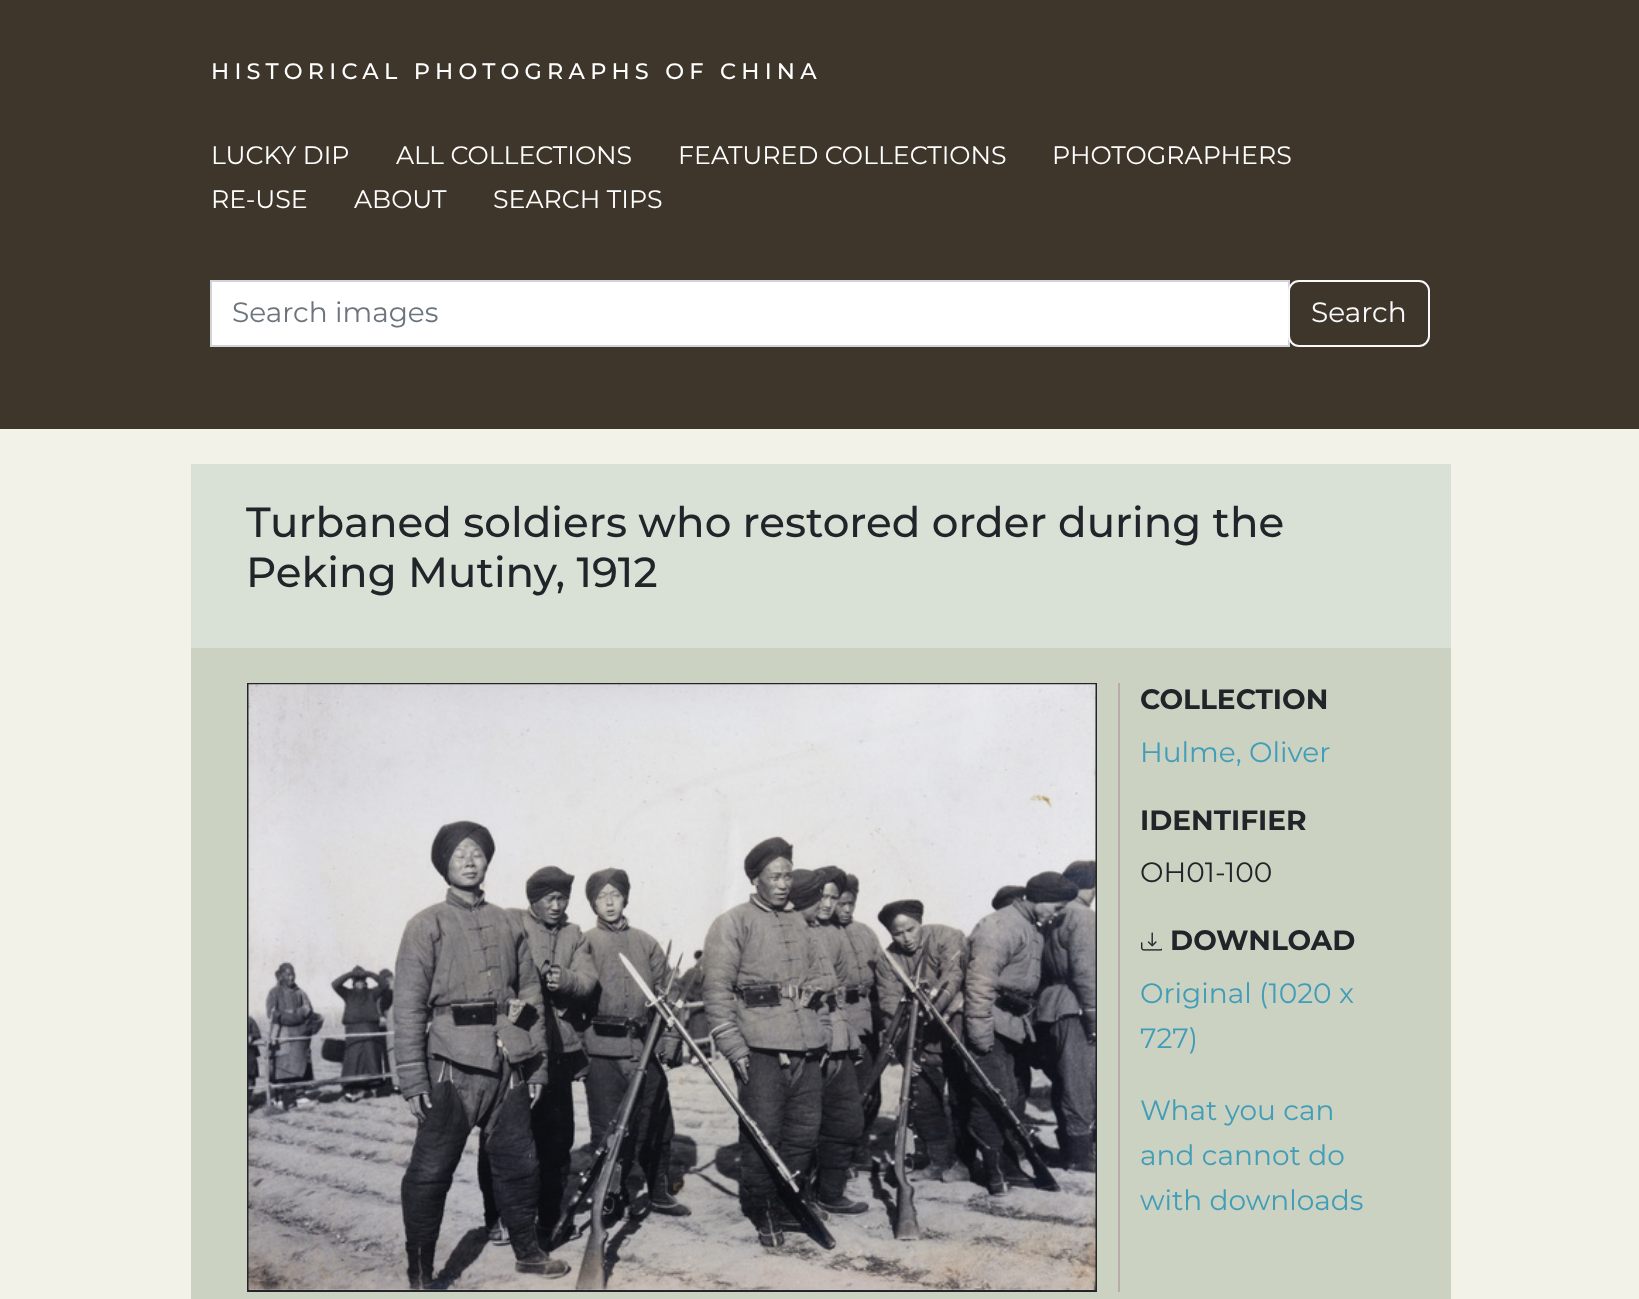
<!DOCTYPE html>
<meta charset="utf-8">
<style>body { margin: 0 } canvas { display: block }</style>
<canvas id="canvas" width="1639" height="1299"></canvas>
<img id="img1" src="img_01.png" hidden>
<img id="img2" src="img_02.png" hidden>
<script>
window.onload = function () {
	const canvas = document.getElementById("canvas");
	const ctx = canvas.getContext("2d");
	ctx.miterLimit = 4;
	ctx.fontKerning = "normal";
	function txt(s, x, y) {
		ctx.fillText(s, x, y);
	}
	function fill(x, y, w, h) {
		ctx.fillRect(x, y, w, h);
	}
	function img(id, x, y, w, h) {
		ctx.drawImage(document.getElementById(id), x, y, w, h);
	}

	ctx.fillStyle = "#F2F2E9";
	fill(0, 0, 1639, 1299);
	ctx.fillStyle = "#3F362B";
	fill(0, 0, 1639, 429);
	ctx.fillStyle = "#FFFFFF";
	ctx.beginPath();
	ctx.rect(211, 281, 1078, 65);
	ctx.fill();
	ctx.strokeStyle = "#CED4DA";
	ctx.lineWidth = 2;
	ctx.stroke();
	ctx.beginPath();
	ctx.roundRect(1289, 281, 140, 65, 10);
	ctx.strokeStyle = "#F8F9FA";
	ctx.stroke();
	ctx.fillStyle = "#D9E0D6";
	fill(191, 464, 1260, 184);
	ctx.fillStyle = "#CBD2C2";
	fill(191, 648, 1260, 651);
	ctx.strokeStyle = "#212529";
	ctx.strokeRect(248, 684, 848, 607);
	img("img1", 248, 684, 848, 606);
	ctx.fillStyle = "#BBAAAA";
	fill(1118, 683, 2, 609);
	img("img2", 1141, 932, 21, 19);
	ctx.letterSpacing = "5.25px";
	ctx.font = "500 22.4px Montserrat";
	ctx.fillStyle = "#FFFFFF";
	txt("HISTORICAL PHOTOGRAPHS OF CHINA", 211, 79);
	ctx.letterSpacing = "0px";
	ctx.font = "25.25px Montserrat";
	txt("LUCKY DIP", 211, 164);
	txt("ALL COLLECTIONS", 396, 164);
	txt("FEATURED COLLECTIONS", 678, 164);
	txt("PHOTOGRAPHERS", 1052, 164);
	txt("RE-USE", 211, 208);
	txt("ABOUT", 354, 208);
	txt("SEARCH TIPS", 493, 208);
	ctx.font = "28px Montserrat";
	ctx.fillStyle = "#6C757D";
	txt("Search images", 232, 322);
	ctx.fillStyle = "#F8F9FA";
	txt("Search", 1311, 322);
	ctx.font = "500 42px Montserrat";
	ctx.fillStyle = "#212529";
	txt("Turbaned soldiers who restored order during the", 246, 537);
	txt("Peking Mutiny, 1912", 246, 587);
	ctx.font = "bold 28px Montserrat";
	txt("COLLECTION", 1140, 709);
	ctx.font = "28px Montserrat";
	ctx.fillStyle = "#419DB8";
	txt("Hulme, Oliver", 1140, 762);
	ctx.font = "bold 28px Montserrat";
	ctx.fillStyle = "#212529";
	txt("IDENTIFIER", 1140, 830);
	ctx.font = "28px Montserrat";
	txt("OH01-100", 1140, 882);
	ctx.font = "bold 28px Montserrat";
	txt("DOWNLOAD", 1170, 950);
	ctx.font = "28px Montserrat";
	ctx.fillStyle = "#419DB8";
	txt("Original (1020 x", 1140, 1003);
	txt("727)", 1140, 1048);
	txt("What you can", 1140, 1120);
	txt("and cannot do", 1140, 1165);
	txt("with downloads", 1140, 1210);
};
</script>
